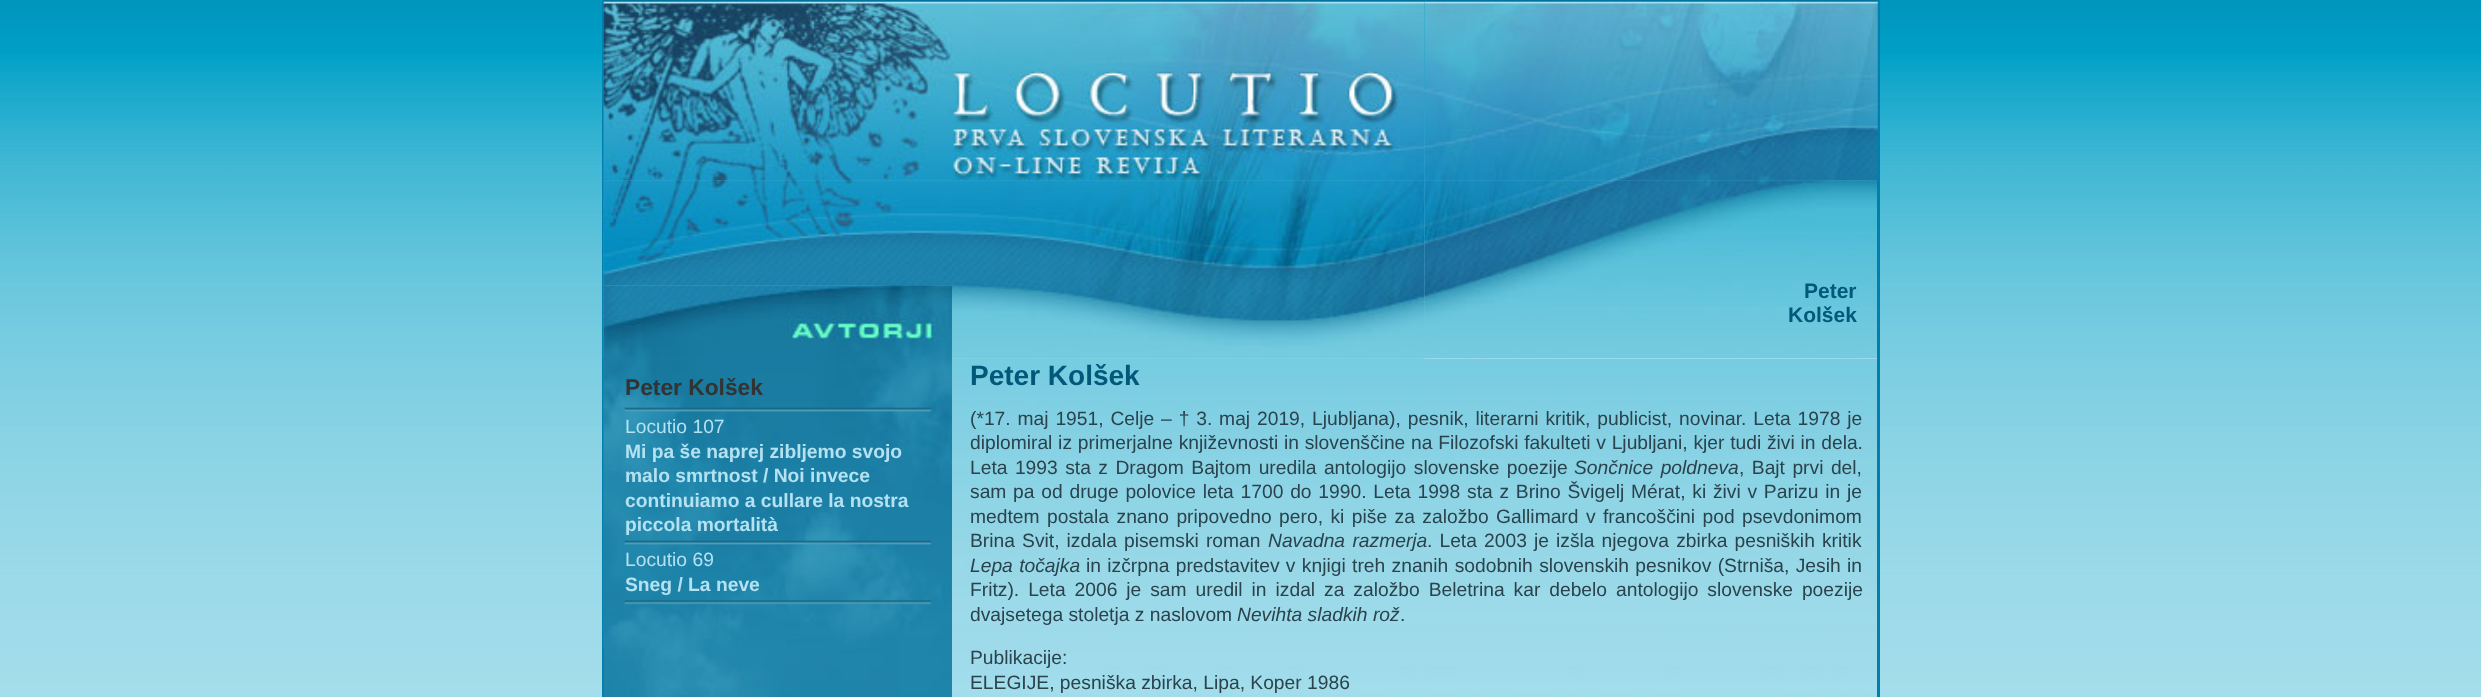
<!DOCTYPE html>
<meta charset="utf-8">
<style>body { margin: 0 } canvas { display: block }</style>
<canvas id="canvas" width="2481" height="697"></canvas>
<img id="img1" src="img_01.png" hidden>
<img id="img2" src="img_02.png" hidden>
<img id="img3" src="img_11.png" hidden>
<img id="img4" src="img_03.png" hidden>
<img id="img5" src="img_04.png" hidden>
<img id="img6" src="img_10.png" hidden>
<img id="img7" src="img_05.png" hidden>
<img id="img8" src="img_06.png" hidden>
<img id="img9" src="img_08.png" hidden>
<img id="img10" src="img_07.png" hidden>
<img id="img11" src="img_15.png" hidden>
<img id="img12" src="img_09.png" hidden>
<img id="img13" src="img_12.png" hidden>
<img id="img14" src="img_13.png" hidden>
<img id="img15" src="img_14.png" hidden>
<script>
window.onload = function () {
	const canvas = document.getElementById("canvas");
	const ctx = canvas.getContext("2d");
	ctx.miterLimit = 4;
	ctx.fontKerning = "normal";
	function txt(s, x, y) {
		ctx.fillText(s, x, y);
	}
	function fill(x, y, w, h) {
		ctx.fillRect(x, y, w, h);
	}
	function img(id, x, y, w, h) {
		ctx.drawImage(document.getElementById(id), x, y, w, h);
	}

	ctx.fillStyle = "#FFFFFF";
	fill(0, 0, 2481, 697);
	img("img1", 0, 0, 2481, 697);
	img("img2", 602, 0, 2, 697);
	ctx.fillStyle = "#1D83A9";
	fill(603, 358, 349, 339);
	img("img3", 603, 359, 349, 338);
	img("img4", 603, 649, 1, 48);
	img("img5", 603, 0, 1274, 2);
	img("img6", 1424, 180, 453, 178);
	img("img7", 603, 1, 822, 180);
	ctx.fillStyle = "#017FAF";
	fill(1877, 0, 3, 697);
	img("img8", 1424, 1, 454, 180);
	img("img9", 603, 180, 349, 106);
	img("img10", 603, 285, 349, 74);
	ctx.fillStyle = "#A9DEEC";
	fill(952, 358, 925, 1);
	img("img11", 952, 358, 925, 339);
	img("img12", 952, 180, 473, 179);
	img("img13", 624, 407, 307, 5);
	img("img14", 624, 540, 307, 5);
	img("img15", 624, 600, 307, 5);
	ctx.font = "bold 21px Liberation Sans";
	ctx.fillStyle = "#015879";
	txt("Peter", 1804, 298);
	txt("Kolšek", 1788, 322);
	ctx.font = "bold 22.75px Liberation Sans";
	ctx.fillStyle = "#333333";
	txt("Peter Kolšek", 625, 395);
	ctx.font = "19.25px Liberation Sans";
	ctx.fillStyle = "#B4E2F0";
	txt("Locutio 107", 625, 433);
	ctx.font = "bold 19.25px Liberation Sans";
	txt("Mi pa še naprej zibljemo svojo", 625, 458);
	txt("malo smrtnost / Noi invece", 625, 482);
	txt("continuiamo a cullare la nostra", 625, 507);
	txt("piccola mortalità", 625, 531);
	ctx.font = "19.25px Liberation Sans";
	txt("Locutio 69", 625, 566);
	ctx.font = "bold 19.25px Liberation Sans";
	txt("Sneg / La neve", 625, 591);
	ctx.font = "bold 28px Liberation Sans";
	ctx.fillStyle = "#015879";
	txt("Peter Kolšek", 970, 385);
	ctx.wordSpacing = "1.5px";
	ctx.font = "19.25px Liberation Sans";
	ctx.fillStyle = "#2A434D";
	txt("(*17. maj 1951, Celje – † 3. maj 2019, Ljubljana), pesnik, literarni kritik, publicist, novinar. Leta 1978 je", 970, 425);
	ctx.wordSpacing = "0.4px";
	txt("diplomiral iz primerjalne književnosti in slovenščine na Filozofski fakulteti v Ljubljani, kjer tudi živi in dela.", 970, 449);
	ctx.wordSpacing = "2.1px";
	txt("Leta 1993 sta z Dragom Bajtom uredila antologijo slovenske poezije", 970, 474);
	ctx.font = "italic 19.25px Liberation Sans";
	txt("Sončnice poldneva", 1574, 474);
	ctx.font = "19.25px Liberation Sans";
	txt(", Bajt prvi del,", 1739, 474);
	ctx.wordSpacing = "1.4px";
	txt("sam pa od druge polovice leta 1700 do 1990. Leta 1998 sta z Brino Švigelj Mérat, ki živi v Parizu in je", 970, 498);
	ctx.wordSpacing = "2.1px";
	txt("medtem postala znano pripovedno pero, ki piše za založbo Gallimard v francoščini pod psevdonimom", 970, 523);
	ctx.wordSpacing = "1.75px";
	txt("Brina Svit, izdala pisemski roman", 970, 547);
	ctx.wordSpacing = "2px";
	ctx.font = "italic 19.25px Liberation Sans";
	txt("Navadna razmerja", 1268, 547);
	ctx.wordSpacing = "1.75px";
	ctx.font = "19.25px Liberation Sans";
	txt(". Leta 2003 je izšla njegova zbirka pesniških kritik", 1427, 547);
	ctx.wordSpacing = "1px";
	ctx.font = "italic 19.25px Liberation Sans";
	txt("Lepa točajka", 970, 572);
	ctx.font = "19.25px Liberation Sans";
	txt("in izčrpna predstavitev v knjigi treh znanih sodobnih slovenskih pesnikov (Strniša, Jesih in", 1086, 572);
	ctx.wordSpacing = "3.6px";
	txt("Fritz). Leta 2006 je sam uredil in izdal za založbo Beletrina kar debelo antologijo slovenske poezije", 970, 596);
	ctx.wordSpacing = "0px";
	txt("dvajsetega stoletja z naslovom", 970, 621);
	ctx.font = "italic 19.25px Liberation Sans";
	txt("Nevihta sladkih rož", 1237, 621);
	ctx.font = "19.25px Liberation Sans";
	txt(".", 1400, 621);
	txt("Publikacije:", 970, 664);
	txt("ELEGIJE, pesniška zbirka, Lipa, Koper 1986", 970, 689);
};
</script>
